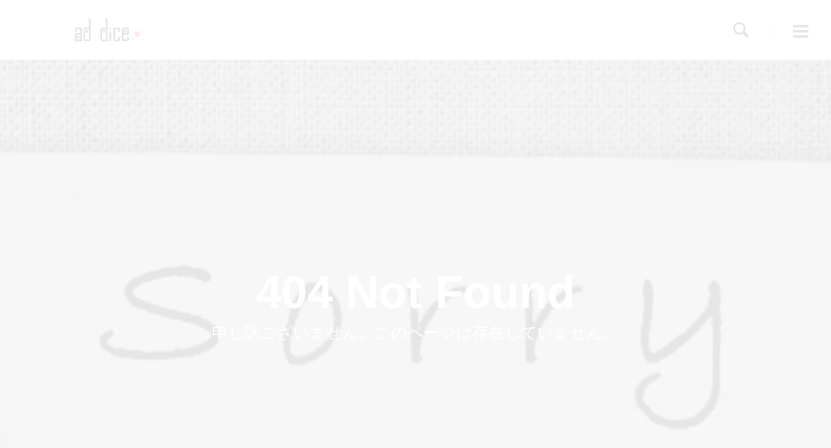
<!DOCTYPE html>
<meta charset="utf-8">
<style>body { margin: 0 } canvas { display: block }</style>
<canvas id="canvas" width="831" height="448"></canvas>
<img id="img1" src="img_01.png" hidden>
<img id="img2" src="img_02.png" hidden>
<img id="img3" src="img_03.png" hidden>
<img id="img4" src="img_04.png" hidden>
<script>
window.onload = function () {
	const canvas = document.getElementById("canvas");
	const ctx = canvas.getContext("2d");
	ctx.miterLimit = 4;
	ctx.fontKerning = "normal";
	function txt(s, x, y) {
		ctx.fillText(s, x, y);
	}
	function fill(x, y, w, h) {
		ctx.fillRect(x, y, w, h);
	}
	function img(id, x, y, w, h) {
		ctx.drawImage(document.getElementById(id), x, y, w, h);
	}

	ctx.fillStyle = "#FFFFFF";
	fill(0, 0, 831, 448);
	ctx.fillStyle = "#FCFCFC";
	fill(0, 59, 831, 1);
	img("img1", 75, 18, 68, 24);
	img("img2", 733, 22, 16, 16);
	fill(770, 20, 1, 20);
	img("img3", 793, 24, 16, 14);
	img("img4", 0, 60, 831, 388);
	ctx.font = "bold 46px Liberation Sans";
	ctx.fillStyle = "#FFFFFF";
	txt("404 Not Found", 256, 308);
	ctx.font = "500 16px WenQuanYi Zen Hei";
	txt("申し訳ございません。このページは存在していません。", 212, 338);
};
</script>
